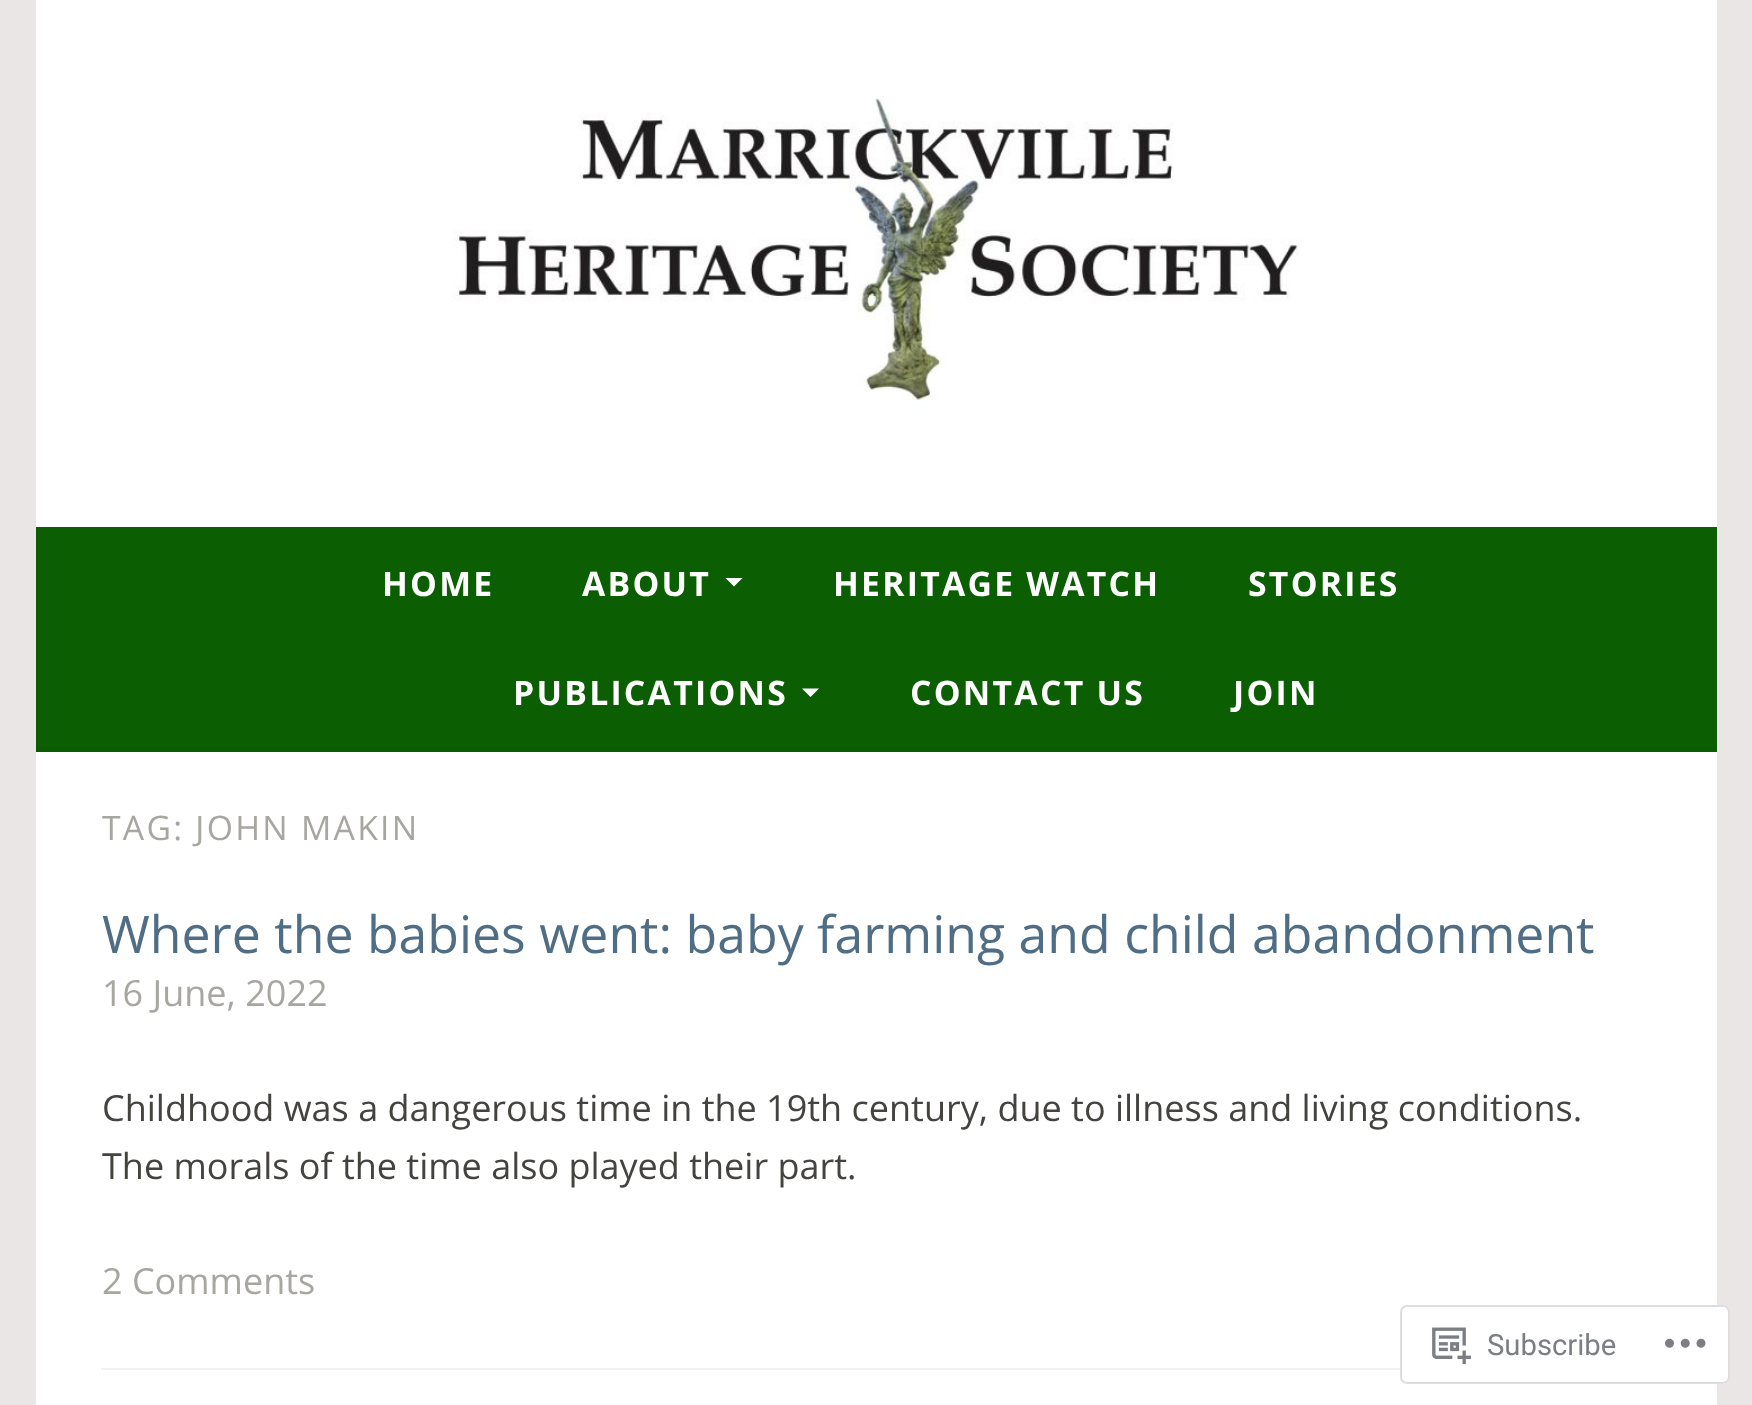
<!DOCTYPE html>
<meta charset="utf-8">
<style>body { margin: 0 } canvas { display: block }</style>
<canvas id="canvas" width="1752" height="1405"></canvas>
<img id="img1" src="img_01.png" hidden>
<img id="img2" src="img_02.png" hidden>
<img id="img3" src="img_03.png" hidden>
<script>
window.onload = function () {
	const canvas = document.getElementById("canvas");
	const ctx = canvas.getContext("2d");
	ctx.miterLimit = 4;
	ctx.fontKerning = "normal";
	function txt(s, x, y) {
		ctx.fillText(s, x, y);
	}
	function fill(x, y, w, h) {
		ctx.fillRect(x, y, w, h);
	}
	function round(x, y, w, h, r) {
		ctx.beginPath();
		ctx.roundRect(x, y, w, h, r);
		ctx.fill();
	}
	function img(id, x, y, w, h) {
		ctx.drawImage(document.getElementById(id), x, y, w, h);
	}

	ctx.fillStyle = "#EAE6E5";
	fill(0, 0, 1752, 1405);
	ctx.fillStyle = "#FFFFFF";
	fill(36, 0, 1681, 527);
	img("img1", 452, 96, 847, 313);
	ctx.fillStyle = "#0B5E01";
	fill(36, 527, 1681, 220);
	ctx.fillStyle = "#0B5B01";
	fill(36, 747, 1681, 5);
	ctx.fillStyle = "#FFFFFF";
	ctx.beginPath();
	ctx.moveTo(725.5, 578);
	ctx.lineTo(742.5, 578);
	ctx.lineTo(734, 586.5);
	ctx.closePath();
	ctx.fill();
	ctx.beginPath();
	ctx.moveTo(802, 688.5);
	ctx.lineTo(819, 688.5);
	ctx.lineTo(810.5, 697);
	ctx.closePath();
	ctx.fill();
	fill(36, 752, 1681, 653);
	ctx.fillStyle = "#F2F2F2";
	fill(101, 1368, 1551, 2);
	ctx.fillStyle = "rgba(255, 255, 255, 0.98)";
	round(1400, 1305, 330, 79, 7);
	ctx.beginPath();
	ctx.roundRect(1401, 1306, 328, 77, 6);
	ctx.strokeStyle = "rgba(220, 220, 222, 0.98)";
	ctx.lineWidth = 2;
	ctx.stroke();
	img("img2", 1432, 1327, 39, 38);
	img("img3", 1665, 1338, 41, 10);
	ctx.letterSpacing = "2.25px";
	ctx.font = "bold 33.75px Open Sans";
	ctx.fillStyle = "#FFFFFF";
	txt("HOME", 382, 596);
	txt("ABOUT", 582, 596);
	txt("HERITAGE WATCH", 833, 596);
	txt("STORIES", 1248, 596);
	txt("PUBLICATIONS", 513, 705);
	txt("CONTACT US", 910, 705);
	txt("JOIN", 1233, 705);
	ctx.font = "33.75px Open Sans";
	ctx.fillStyle = "#A8A6A1";
	txt("TAG: JOHN MAKIN", 102, 840);
	ctx.letterSpacing = "0px";
	ctx.font = "51.75px Open Sans";
	ctx.fillStyle = "#4F6E86";
	txt("Where the babies went: baby farming and child abandonment", 102, 953);
	ctx.font = "36px Open Sans";
	ctx.fillStyle = "#A8A6A1";
	txt("16 June, 2022", 102, 1006);
	ctx.fillStyle = "#444340";
	txt("Childhood was a dangerous time in the 19th century, due to illness and living conditions.", 102, 1121);
	txt("The morals of the time also played their part.", 102, 1179);
	ctx.fillStyle = "#A8A6A1";
	txt("2 Comments", 102, 1294);
	ctx.font = "29.25px Roboto";
	ctx.fillStyle = "#7B7F85";
	txt("Subscribe", 1487, 1355);
};
</script>
